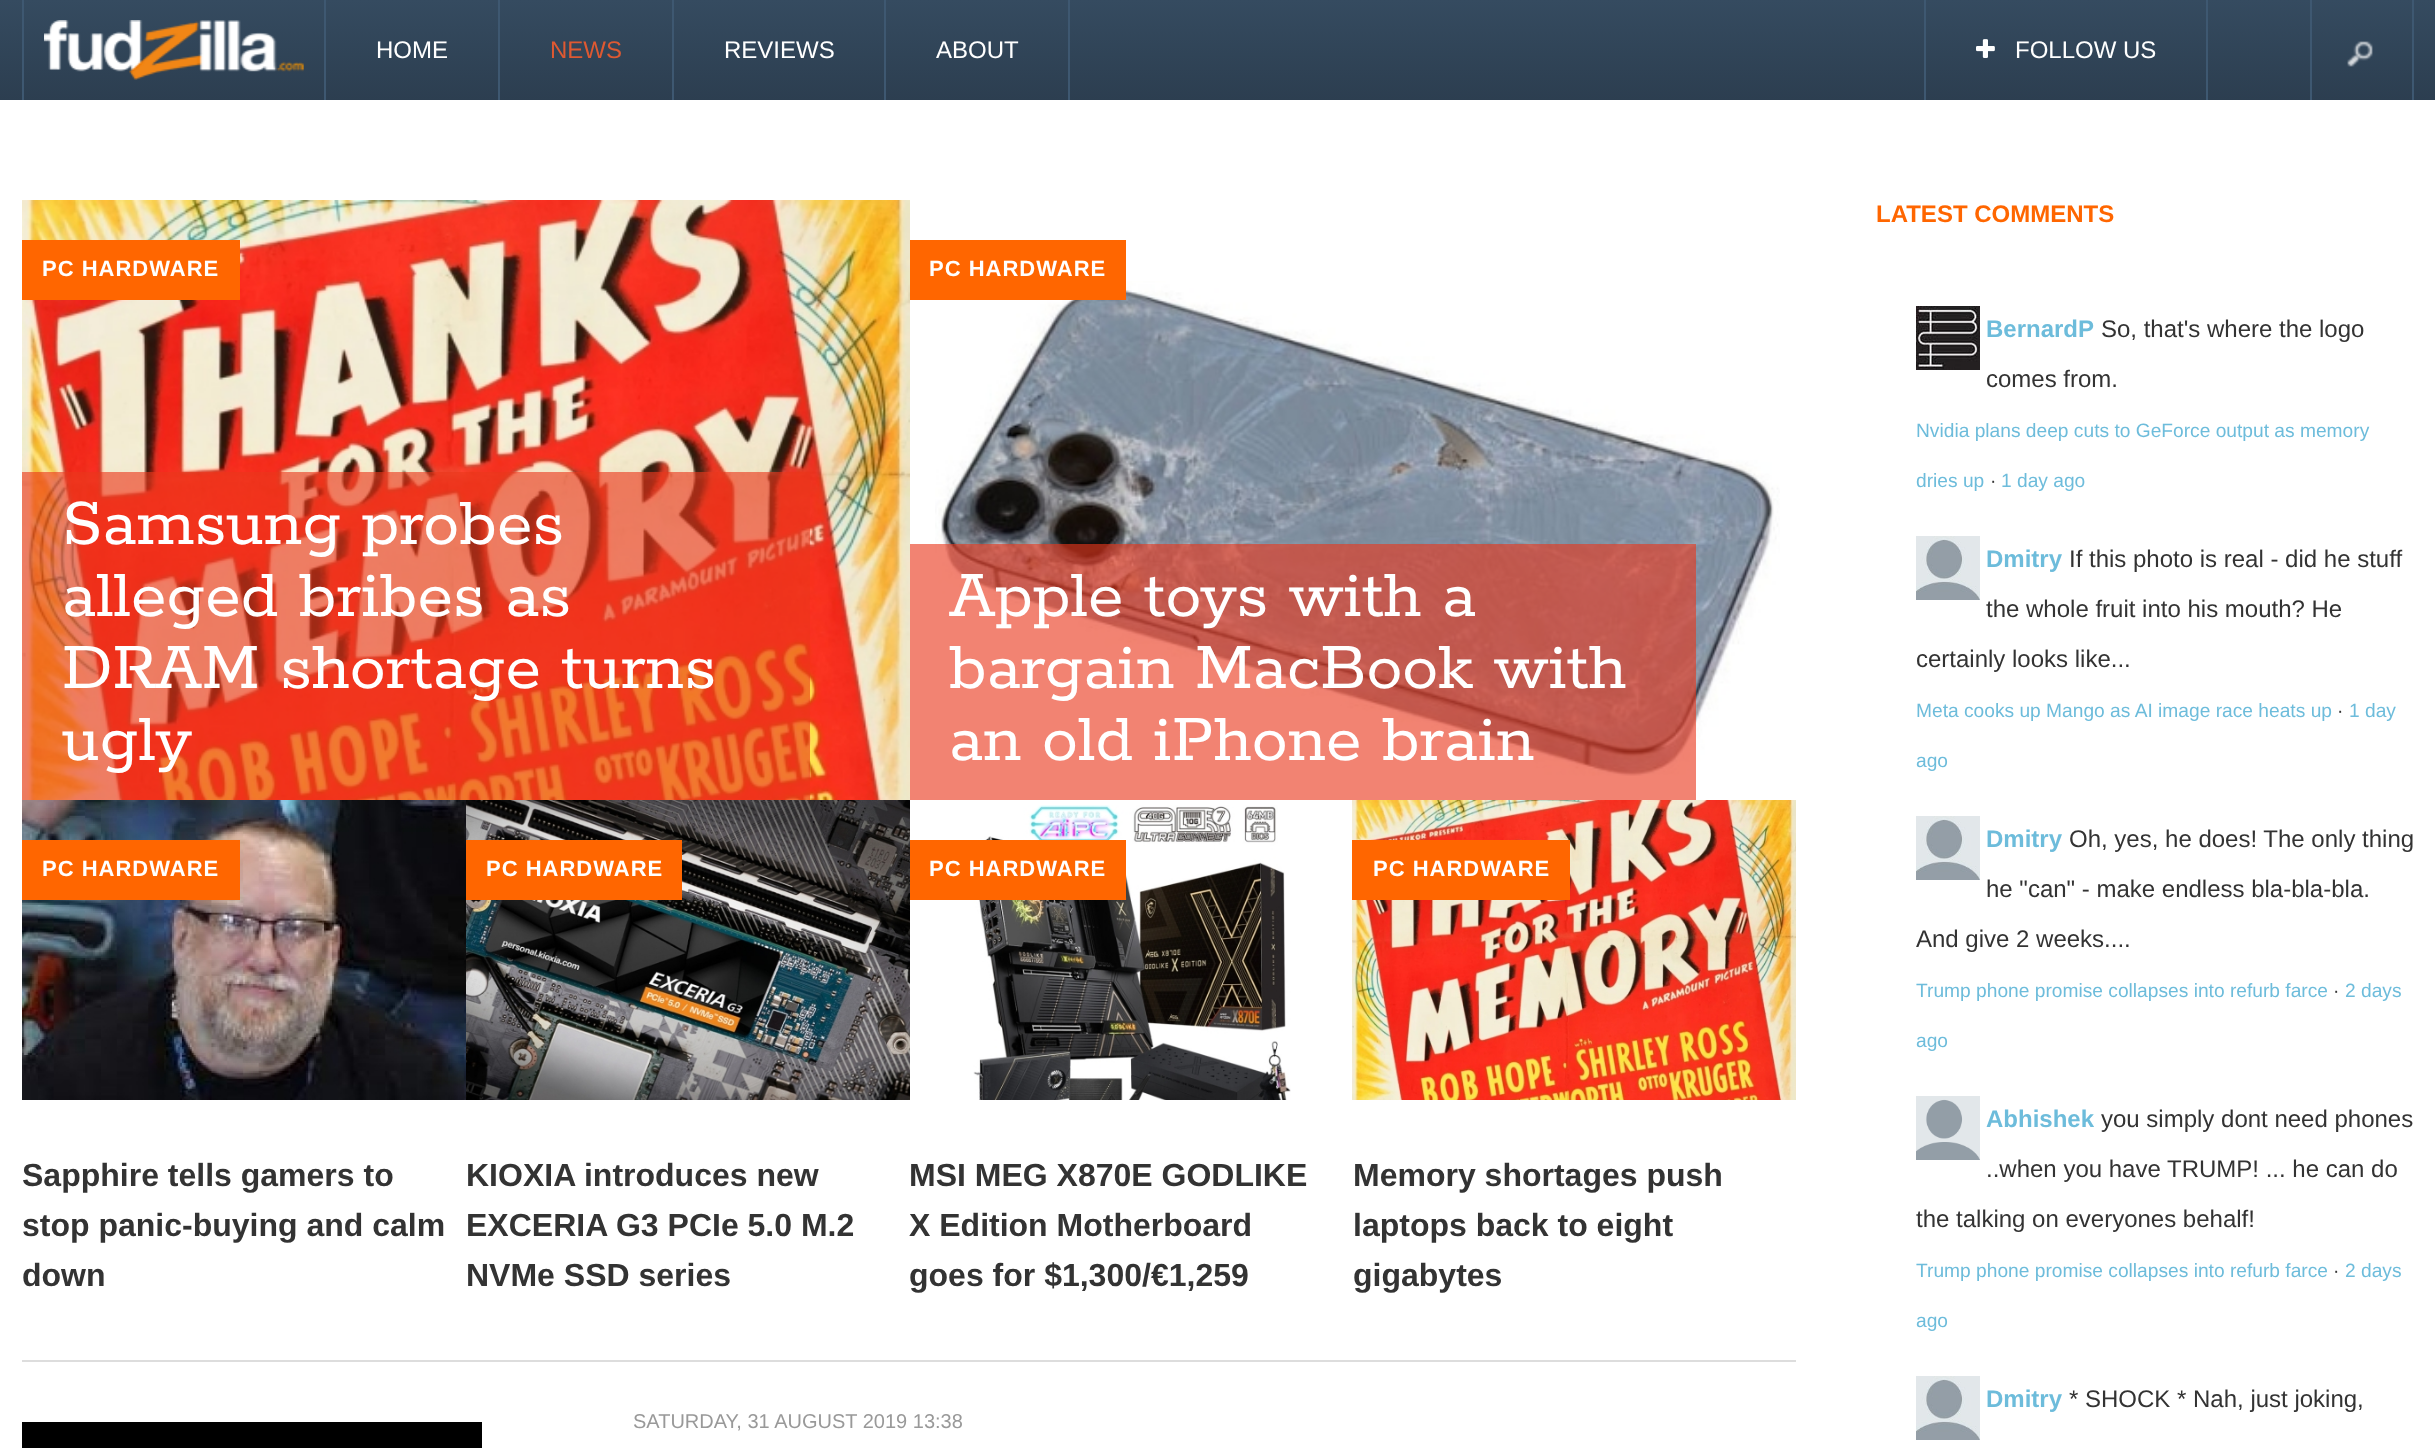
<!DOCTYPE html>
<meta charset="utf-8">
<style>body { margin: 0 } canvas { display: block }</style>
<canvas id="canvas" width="2435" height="1448"></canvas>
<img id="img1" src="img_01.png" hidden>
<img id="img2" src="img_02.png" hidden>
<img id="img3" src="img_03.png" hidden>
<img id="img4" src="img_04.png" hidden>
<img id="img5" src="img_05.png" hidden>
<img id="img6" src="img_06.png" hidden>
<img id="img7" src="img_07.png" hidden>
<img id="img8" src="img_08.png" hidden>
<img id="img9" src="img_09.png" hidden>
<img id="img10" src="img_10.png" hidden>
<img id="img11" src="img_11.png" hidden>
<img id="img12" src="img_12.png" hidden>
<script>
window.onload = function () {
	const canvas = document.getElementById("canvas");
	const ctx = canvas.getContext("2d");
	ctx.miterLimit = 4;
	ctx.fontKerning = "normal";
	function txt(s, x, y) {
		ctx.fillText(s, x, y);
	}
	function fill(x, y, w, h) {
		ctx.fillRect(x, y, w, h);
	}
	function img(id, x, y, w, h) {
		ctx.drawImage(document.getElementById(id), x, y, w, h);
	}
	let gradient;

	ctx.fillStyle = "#FFFFFF";
	fill(0, 0, 2435, 1448);
	gradient = ctx.createLinearGradient(1218, 0, 1218, 100);
	gradient.addColorStop(0, "#354B60");
	gradient.addColorStop(1, "#2C3E50");
	ctx.fillStyle = gradient;
	fill(0, 0, 2435, 100);
	ctx.fillStyle = "#3E5871";
	fill(324, 0, 2, 100);
	fill(22, 0, 2, 100);
	img("img1", 44, 20, 260, 60);
	fill(498, 0, 2, 100);
	fill(672, 0, 2, 100);
	fill(884, 0, 2, 100);
	fill(1068, 0, 2, 100);
	fill(1924, 0, 2, 100);
	fill(2206, 0, 2, 100);
	img("img2", 1976, 39, 19, 19);
	fill(2412, 0, 2, 100);
	fill(2310, 0, 2, 100);
	img("img3", 2347, 41, 26, 26);
	ctx.fillStyle = "#DDDDDD";
	fill(22, 1360, 1774, 2);
	img("img4", 22, 200, 888, 600);
	ctx.fillStyle = "#FF6600";
	fill(22, 240, 218, 60);
	ctx.fillStyle = "rgba(234, 55, 27, 0.62)";
	fill(22, 472, 788, 328);
	img("img5", 935, 281, 845, 495);
	ctx.fillStyle = "#FF6600";
	fill(910, 240, 216, 60);
	ctx.fillStyle = "rgba(234, 55, 27, 0.62)";
	fill(910, 544, 786, 256);
	img("img6", 22, 800, 444, 300);
	ctx.fillStyle = "#FF6600";
	fill(22, 840, 218, 60);
	img("img7", 466, 800, 444, 300);
	fill(466, 840, 216, 60);
	img("img8", 971, 805, 320, 295);
	fill(910, 840, 216, 60);
	img("img9", 1352, 800, 444, 300);
	fill(1352, 840, 218, 60);
	ctx.fillStyle = "#000000";
	fill(22, 1422, 460, 26);
	img("img10", 1916, 306, 64, 64);
	img("img11", 1916, 536, 64, 64);
	img("img11", 1916, 816, 64, 64);
	img("img12", 1916, 1096, 64, 64);
	img("img11", 1916, 1376, 64, 64);
	ctx.font = "24px Liberation Sans";
	ctx.fillStyle = "#FFFFFF";
	txt("HOME", 376, 58);
	ctx.fillStyle = "#DE5932";
	txt("NEWS", 550, 58);
	ctx.fillStyle = "#FFFFFF";
	txt("REVIEWS", 724, 58);
	txt("ABOUT", 936, 58);
	txt("FOLLOW US", 2015, 58);
	ctx.letterSpacing = "1px";
	ctx.font = "bold 22px Liberation Sans";
	txt("PC HARDWARE", 42, 276);
	ctx.letterSpacing = "0px";
	ctx.font = "72px Rokkitt";
	txt("Samsung probes", 62, 544);
	txt("alleged bribes as", 62, 616);
	txt("DRAM shortage turns", 62, 688);
	txt("ugly", 62, 760);
	ctx.letterSpacing = "1px";
	ctx.font = "bold 22px Liberation Sans";
	txt("PC HARDWARE", 929, 276);
	ctx.letterSpacing = "0px";
	ctx.font = "72px Rokkitt";
	txt("Apple toys with a", 949, 616);
	txt("bargain MacBook with", 949, 688);
	txt("an old iPhone brain", 949, 760);
	ctx.letterSpacing = "1px";
	ctx.font = "bold 22px Liberation Sans";
	txt("PC HARDWARE", 42, 876);
	ctx.letterSpacing = "0px";
	ctx.font = "bold 32px Liberation Sans";
	ctx.fillStyle = "#333333";
	txt("Sapphire tells gamers to", 22, 1186);
	txt("stop panic-buying and calm", 22, 1236);
	txt("down", 22, 1286);
	ctx.letterSpacing = "1px";
	ctx.font = "bold 22px Liberation Sans";
	ctx.fillStyle = "#FFFFFF";
	txt("PC HARDWARE", 486, 876);
	ctx.letterSpacing = "0px";
	ctx.font = "bold 32px Liberation Sans";
	ctx.fillStyle = "#333333";
	txt("KIOXIA introduces new", 466, 1186);
	txt("EXCERIA G3 PCIe 5.0 M.2", 466, 1236);
	txt("NVMe SSD series", 466, 1286);
	ctx.letterSpacing = "1px";
	ctx.font = "bold 22px Liberation Sans";
	ctx.fillStyle = "#FFFFFF";
	txt("PC HARDWARE", 929, 876);
	ctx.letterSpacing = "0px";
	ctx.font = "bold 32px Liberation Sans";
	ctx.fillStyle = "#333333";
	txt("MSI MEG X870E GODLIKE", 909, 1186);
	txt("X Edition Motherboard", 909, 1236);
	txt("goes for $1,300/€1,259", 909, 1286);
	ctx.letterSpacing = "1px";
	ctx.font = "bold 22px Liberation Sans";
	ctx.fillStyle = "#FFFFFF";
	txt("PC HARDWARE", 1373, 876);
	ctx.letterSpacing = "0px";
	ctx.font = "bold 32px Liberation Sans";
	ctx.fillStyle = "#333333";
	txt("Memory shortages push", 1353, 1186);
	txt("laptops back to eight", 1353, 1236);
	txt("gigabytes", 1353, 1286);
	ctx.font = "20px Liberation Sans";
	ctx.fillStyle = "#999999";
	txt("SATURDAY, 31 AUGUST 2019 13:38", 633, 1428);
	ctx.font = "bold 24px Liberation Sans";
	ctx.fillStyle = "#FF6600";
	txt("LATEST COMMENTS", 1876, 222);
	ctx.fillStyle = "#6DBCDB";
	txt("BernardP", 1986, 337);
	ctx.font = "24px Liberation Sans";
	ctx.fillStyle = "#333333";
	txt("So, that's where the logo", 2101, 337);
	txt("comes from.", 1986, 387);
	ctx.font = "19.2px Liberation Sans";
	ctx.fillStyle = "#6DBCDB";
	txt("Nvidia plans deep cuts to GeForce output as memory", 1916, 437);
	txt("dries up", 1916, 487);
	ctx.fillStyle = "#333333";
	txt("·", 1990, 487);
	ctx.fillStyle = "#6DBCDB";
	txt("1 day ago", 2001, 487);
	ctx.font = "bold 24px Liberation Sans";
	txt("Dmitry", 1986, 567);
	ctx.font = "24px Liberation Sans";
	ctx.fillStyle = "#333333";
	txt("If this photo is real - did he stuff", 2069, 567);
	txt("the whole fruit into his mouth? He", 1986, 617);
	txt("certainly looks like...", 1916, 667);
	ctx.font = "19.2px Liberation Sans";
	ctx.fillStyle = "#6DBCDB";
	txt("Meta cooks up Mango as AI image race heats up", 1916, 717);
	ctx.fillStyle = "#333333";
	txt("·", 2337, 717);
	ctx.fillStyle = "#6DBCDB";
	txt("1 day", 2349, 717);
	txt("ago", 1916, 767);
	ctx.font = "bold 24px Liberation Sans";
	txt("Dmitry", 1986, 847);
	ctx.font = "24px Liberation Sans";
	ctx.fillStyle = "#333333";
	txt("Oh, yes, he does! The only thing", 2069, 847);
	txt("he \"can\" - make endless bla-bla-bla.", 1986, 897);
	txt("And give 2 weeks....", 1916, 947);
	ctx.font = "19.2px Liberation Sans";
	ctx.fillStyle = "#6DBCDB";
	txt("Trump phone promise collapses into refurb farce", 1916, 997);
	ctx.fillStyle = "#333333";
	txt("·", 2333, 997);
	ctx.fillStyle = "#6DBCDB";
	txt("2 days", 2345, 997);
	txt("ago", 1916, 1047);
	ctx.font = "bold 24px Liberation Sans";
	txt("Abhishek", 1986, 1127);
	ctx.font = "24px Liberation Sans";
	ctx.fillStyle = "#333333";
	txt("you simply dont need phones", 2101, 1127);
	txt("..when you have TRUMP! ... he can do", 1986, 1177);
	txt("the talking on everyones behalf!", 1916, 1227);
	ctx.font = "19.2px Liberation Sans";
	ctx.fillStyle = "#6DBCDB";
	txt("Trump phone promise collapses into refurb farce", 1916, 1277);
	ctx.fillStyle = "#333333";
	txt("·", 2333, 1277);
	ctx.fillStyle = "#6DBCDB";
	txt("2 days", 2345, 1277);
	txt("ago", 1916, 1327);
	ctx.font = "bold 24px Liberation Sans";
	txt("Dmitry", 1986, 1407);
	ctx.font = "24px Liberation Sans";
	ctx.fillStyle = "#333333";
	txt("* SHOCK * Nah, just joking,", 2069, 1407);
};
</script>
